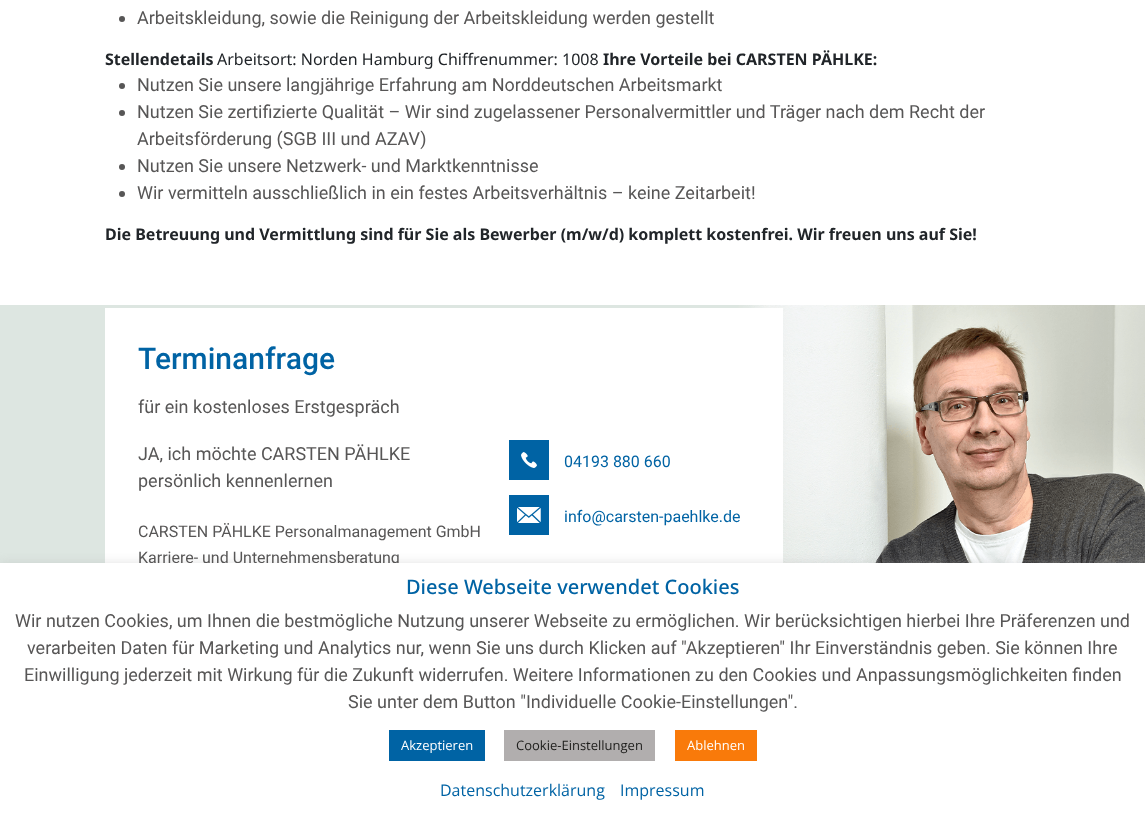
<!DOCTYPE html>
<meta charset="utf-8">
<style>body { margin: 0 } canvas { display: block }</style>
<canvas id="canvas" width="1145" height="815"></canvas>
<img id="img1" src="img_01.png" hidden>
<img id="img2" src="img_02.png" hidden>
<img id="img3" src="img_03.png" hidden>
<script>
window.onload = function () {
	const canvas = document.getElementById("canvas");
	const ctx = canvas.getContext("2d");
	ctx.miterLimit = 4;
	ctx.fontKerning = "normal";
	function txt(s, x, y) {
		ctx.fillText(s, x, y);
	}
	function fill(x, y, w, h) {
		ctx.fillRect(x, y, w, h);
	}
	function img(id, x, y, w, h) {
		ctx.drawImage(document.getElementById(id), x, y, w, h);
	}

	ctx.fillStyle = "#FFFFFF";
	fill(0, 0, 1145, 815);
	ctx.fillStyle = "#575656";
	ctx.beginPath();
	ctx.arc(122, 19, 3, 0, Math.PI * 2);
	ctx.fill();
	ctx.beginPath();
	ctx.arc(122, 86, 3, 0, Math.PI * 2);
	ctx.fill();
	ctx.beginPath();
	ctx.arc(122, 113, 3, 0, Math.PI * 2);
	ctx.fill();
	ctx.beginPath();
	ctx.arc(122, 167, 3, 0, Math.PI * 2);
	ctx.fill();
	ctx.beginPath();
	ctx.arc(122, 194, 3, 0, Math.PI * 2);
	ctx.fill();
	img("img1", 0, 305, 1145, 258);
	ctx.fillStyle = "#FFFFFF";
	fill(105, 308, 678, 255);
	ctx.fillStyle = "#0063A4";
	fill(509, 440, 40, 40);
	img("img2", 521, 452, 16, 16);
	fill(509, 495, 40, 40);
	img("img3", 517, 507, 24, 16);
	ctx.fillStyle = "rgba(172, 171, 171, 0.3)";
	ctx.filter = "blur(5px)";
	ctx.beginPath();
	ctx.rect(0, 562, 1145, 252);
	ctx.fill();
	ctx.filter = "none";
	ctx.font = "18px Roboto";
	ctx.fillStyle = "#575656";
	txt("Arbeitskleidung, sowie die Reinigung der Arbeitskleidung werden gestellt", 137, 24);
	ctx.font = "bold 16px Noto Sans";
	ctx.fillStyle = "#212529";
	txt("Stellendetails", 105, 65);
	ctx.font = "16px Noto Sans";
	txt("Arbeitsort: Norden Hamburg Chiffrenummer: 1008", 217, 65);
	ctx.font = "bold 16px Noto Sans";
	txt("Ihre Vorteile bei CARSTEN PÄHLKE:", 603, 65);
	ctx.font = "18px Roboto";
	ctx.fillStyle = "#575656";
	txt("Nutzen Sie unsere langjährige Erfahrung am Norddeutschen Arbeitsmarkt", 137, 91);
	txt("Nutzen Sie zertifizierte Qualität – Wir sind zugelassener Personalvermittler und Träger nach dem Recht der", 137, 118);
	txt("Arbeitsförderung (SGB III und AZAV)", 137, 145);
	txt("Nutzen Sie unsere Netzwerk- und Marktkenntnisse", 137, 172);
	txt("Wir vermitteln ausschließlich in ein festes Arbeitsverhältnis – keine Zeitarbeit!", 137, 199);
	ctx.font = "bold 16px Noto Sans";
	ctx.fillStyle = "#212529";
	txt("Die Betreuung und Vermittlung sind für Sie als Bewerber (m/w/d) komplett kostenfrei. Wir freuen uns auf Sie!", 105, 240);
	ctx.font = "500 30px Roboto";
	ctx.fillStyle = "#0063A4";
	txt("Terminanfrage", 138, 369);
	ctx.font = "18px Roboto";
	ctx.fillStyle = "#575656";
	txt("für ein kostenloses Erstgespräch", 138, 413);
	txt("JA, ich möchte CARSTEN PÄHLKE", 138, 460);
	txt("persönlich kennenlernen", 138, 487);
	ctx.font = "16px Roboto";
	txt("CARSTEN PÄHLKE Personalmanagement GmbH", 138, 537);
	txt("Karriere- und Unternehmensberatung", 138, 563);
	ctx.fillStyle = "#0063A4";
	txt("04193 880 660", 564, 467);
	txt("info@carsten-paehlke.de", 564, 522);
	ctx.fillStyle = "#FFFFFF";
	fill(0, 563, 1145, 252);
	ctx.font = "500 20px Noto Sans";
	ctx.fillStyle = "#0063A4";
	txt("Diese Webseite verwendet Cookies", 406, 594);
	ctx.font = "18px Roboto";
	ctx.fillStyle = "#575656";
	txt("Wir nutzen Cookies, um Ihnen die bestmögliche Nutzung unserer Webseite zu ermöglichen. Wir berücksichtigen hierbei Ihre Präferenzen und", 15, 627);
	txt("verarbeiten Daten für Marketing und Analytics nur, wenn Sie uns durch Klicken auf \"Akzeptieren\" Ihr Einverständnis geben. Sie können Ihre", 27, 654);
	txt("Einwilligung jederzeit mit Wirkung für die Zukunft widerrufen. Weitere Informationen zu den Cookies und Anpassungsmöglichkeiten finden", 24, 681);
	txt("Sie unter dem Button \"Individuelle Cookie-Einstellungen\".", 348, 708);
	ctx.fillStyle = "#0063A4";
	fill(389, 730, 96, 31);
	ctx.font = "13px Open Sans";
	ctx.fillStyle = "#FFFFFF";
	txt("Akzeptieren", 401, 750);
	ctx.fillStyle = "#B1AEAE";
	fill(504, 730, 151, 31);
	ctx.fillStyle = "#1D1D1B";
	txt("Cookie-Einstellungen", 516, 750);
	ctx.fillStyle = "#F97A0A";
	fill(675, 730, 82, 31);
	ctx.fillStyle = "#FFFFFF";
	txt("Ablehnen", 687, 750);
	ctx.font = "16px Open Sans";
	ctx.fillStyle = "#0063A4";
	txt("Datenschutzerklärung", 440, 796);
	txt("Impressum", 620, 796);
};
</script>
